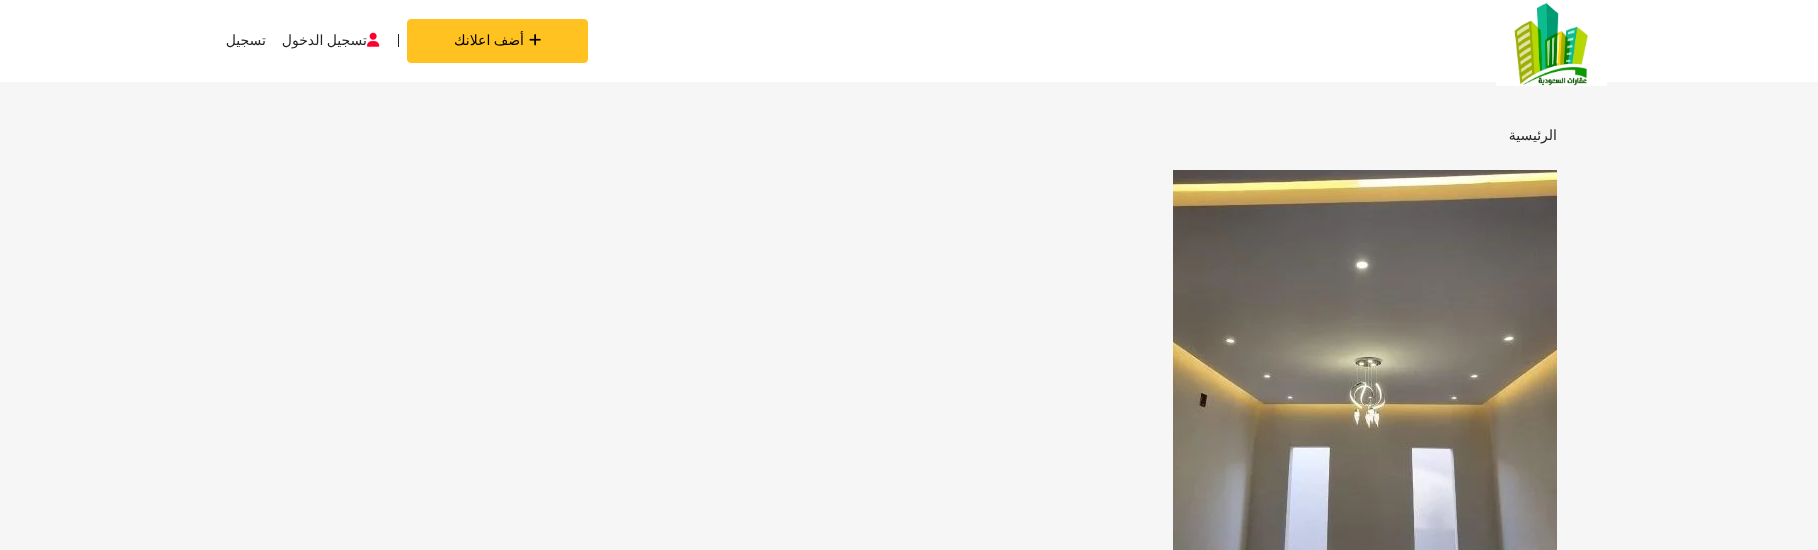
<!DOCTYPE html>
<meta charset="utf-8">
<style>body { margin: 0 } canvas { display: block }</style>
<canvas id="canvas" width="1818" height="550"></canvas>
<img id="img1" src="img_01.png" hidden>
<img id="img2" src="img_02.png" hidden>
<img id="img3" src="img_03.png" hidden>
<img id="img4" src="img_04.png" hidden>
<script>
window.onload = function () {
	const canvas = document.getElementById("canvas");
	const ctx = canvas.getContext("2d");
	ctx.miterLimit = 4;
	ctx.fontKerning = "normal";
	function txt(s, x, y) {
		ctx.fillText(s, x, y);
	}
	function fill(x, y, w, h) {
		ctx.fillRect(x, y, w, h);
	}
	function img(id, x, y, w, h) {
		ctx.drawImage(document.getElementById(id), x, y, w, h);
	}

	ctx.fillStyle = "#F6F6F6";
	fill(0, 0, 1818, 550);
	ctx.fillStyle = "#FFFFFF";
	fill(0, 0, 1818, 82);
	img("img1", 1496, 3, 111, 83);
	ctx.fillStyle = "#FFC220";
	ctx.beginPath();
	ctx.roundRect(407.5, 19.5, 180, 43, 3.5);
	ctx.fill();
	ctx.strokeStyle = "#FFC220";
	ctx.stroke();
	img("img2", 529, 34, 12, 12);
	ctx.fillStyle = "#242424";
	fill(398, 34, 1, 13);
	img("img3", 367, 32, 13, 15);
	img("img4", 1173, 170, 384, 380);
	ctx.wordSpacing = "-1px";
	ctx.direction = "rtl";
	ctx.font = "14px DejaVu Sans";
	ctx.fillStyle = "#000000";
	txt("أضف اعلانك", 524, 45);
	ctx.fillStyle = "#242424";
	txt("تسجيل الدخول", 367, 45);
	ctx.wordSpacing = "0px";
	txt("تسجيل", 266, 45);
	txt("الرئيسية", 1557, 140);
};
</script>
